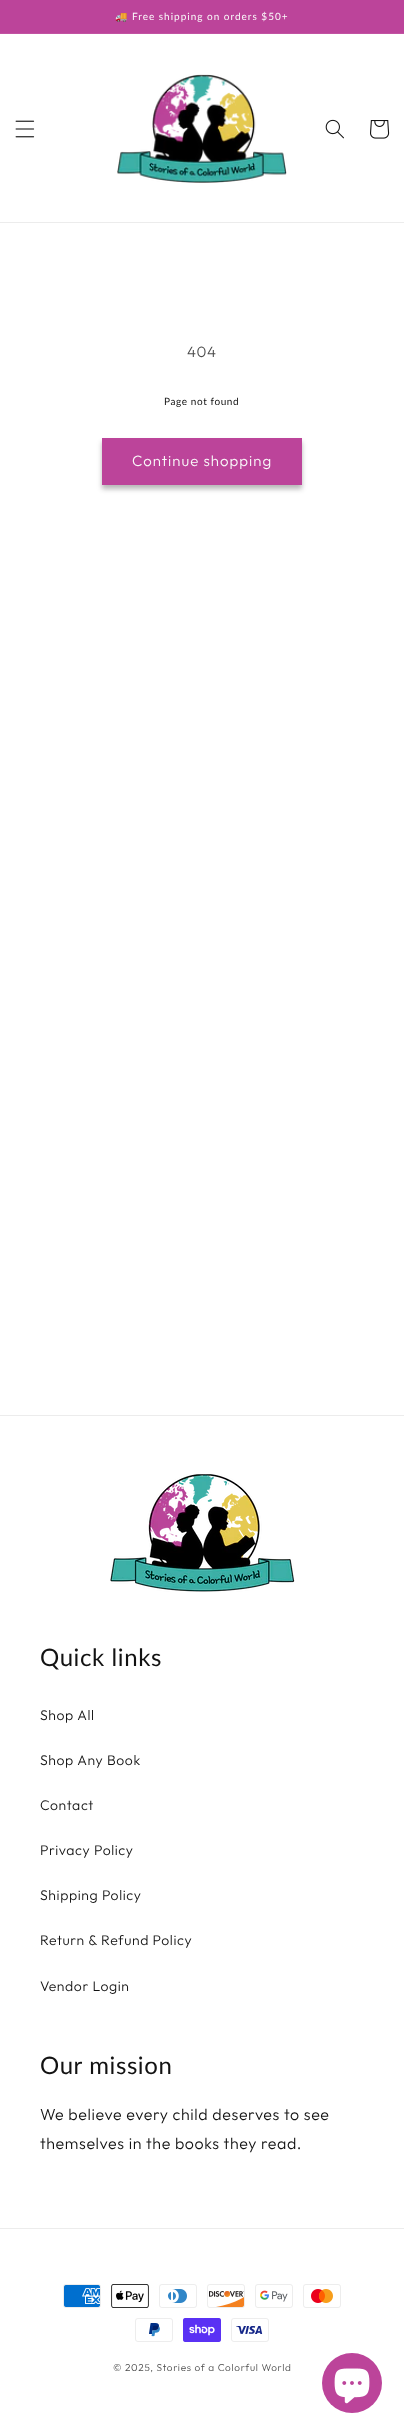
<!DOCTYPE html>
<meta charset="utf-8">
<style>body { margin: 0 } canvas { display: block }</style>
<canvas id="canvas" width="404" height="2434"></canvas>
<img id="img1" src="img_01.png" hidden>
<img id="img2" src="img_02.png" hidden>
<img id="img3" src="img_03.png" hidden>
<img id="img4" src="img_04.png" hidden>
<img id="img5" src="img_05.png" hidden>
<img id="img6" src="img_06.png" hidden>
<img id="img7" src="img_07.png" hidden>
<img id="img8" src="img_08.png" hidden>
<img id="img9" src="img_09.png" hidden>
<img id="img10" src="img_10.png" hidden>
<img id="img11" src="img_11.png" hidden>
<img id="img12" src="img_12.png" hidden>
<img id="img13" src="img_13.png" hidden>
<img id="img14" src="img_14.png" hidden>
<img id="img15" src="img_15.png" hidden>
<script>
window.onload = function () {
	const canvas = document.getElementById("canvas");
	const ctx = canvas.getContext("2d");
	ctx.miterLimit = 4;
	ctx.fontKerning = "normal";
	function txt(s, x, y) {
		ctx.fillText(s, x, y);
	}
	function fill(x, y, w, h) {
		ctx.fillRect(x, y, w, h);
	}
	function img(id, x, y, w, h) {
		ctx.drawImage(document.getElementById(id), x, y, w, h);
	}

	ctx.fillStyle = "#FFFFFF";
	fill(0, 0, 404, 2434);
	ctx.fillStyle = "#BC449A";
	fill(0, 0, 404, 33);
	ctx.fillStyle = "#C153A2";
	fill(0, 33, 404, 1);
	ctx.fillStyle = "#ECECEC";
	fill(0, 222, 404, 1);
	img("img1", 15, 120, 20, 18);
	img("img2", 117, 74, 170, 109);
	img("img3", 325, 119, 19, 20);
	img("img4", 370, 120, 20, 19);
	ctx.fillStyle = "rgba(18, 18, 18, 0.3)";
	ctx.filter = "blur(2.5px)";
	ctx.beginPath();
	ctx.rect(102, 442, 200, 47);
	ctx.fill();
	ctx.filter = "none";
	ctx.fillStyle = "#BC449A";
	fill(102, 438, 200, 47);
	ctx.fillStyle = "#ECECEC";
	fill(0, 1415, 404, 1);
	img("img5", 110, 1474, 185, 118);
	fill(0, 2228, 404, 1);
	img("img6", 63, 2284, 38, 24);
	img("img7", 111, 2284, 38, 24);
	img("img8", 159, 2284, 38, 24);
	img("img9", 207, 2284, 38, 24);
	img("img10", 255, 2284, 38, 24);
	img("img11", 303, 2284, 38, 24);
	img("img12", 135, 2318, 38, 24);
	img("img13", 183, 2318, 38, 24);
	img("img14", 231, 2318, 38, 24);
	ctx.fillStyle = "#BC449A";
	ctx.beginPath();
	ctx.arc(352, 2383, 30, 0, Math.PI * 2);
	ctx.fill();
	img("img15", 334, 2368, 36, 36);
	ctx.letterSpacing = "1px";
	ctx.font = "10px Noto Color Emoji";
	ctx.fillStyle = "#FAFAFA";
	txt("🚚", 115, 20);
	ctx.font = "10px Lato";
	txt("Free shipping on orders $50+", 132, 20);
	ctx.letterSpacing = "0.6px";
	ctx.font = "300 15px Outfit";
	ctx.fillStyle = "#4D4D4D";
	txt("404", 187, 357);
	ctx.font = "10px Lato";
	ctx.fillStyle = "#121212";
	txt("Page not found", 164, 405);
	ctx.letterSpacing = "1px";
	ctx.font = "300 15px Outfit";
	ctx.fillStyle = "#FAFAFA";
	txt("Continue shopping", 132, 466);
	ctx.letterSpacing = "0.6px";
	ctx.font = "24px Lato";
	ctx.fillStyle = "#121212";
	txt("Quick links", 40, 1666);
	ctx.font = "300 14px Outfit";
	txt("Shop All", 40, 1720);
	txt("Shop Any Book", 40, 1765);
	txt("Contact", 40, 1810);
	txt("Privacy Policy", 40, 1855);
	txt("Shipping Policy", 40, 1900);
	txt("Return & Refund Policy", 40, 1945);
	txt("Vendor Login", 40, 1991);
	ctx.font = "24px Lato";
	txt("Our mission", 40, 2074);
	ctx.font = "300 16px Outfit";
	txt("We believe every child deserves to see", 40, 2120);
	txt("themselves in the books they read.", 40, 2149);
	ctx.letterSpacing = "0.7px";
	ctx.font = "300 10px Outfit";
	ctx.fillStyle = "#4D4D4D";
	txt("© 2025, Stories of a Colorful World", 113, 2371);
};
</script>
